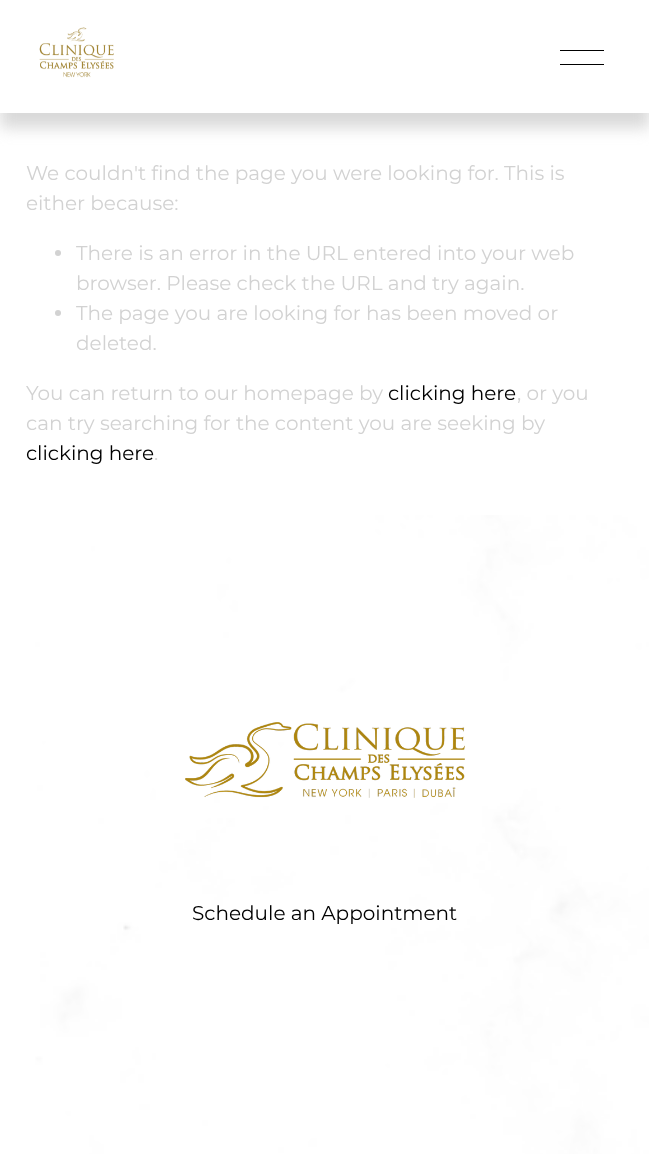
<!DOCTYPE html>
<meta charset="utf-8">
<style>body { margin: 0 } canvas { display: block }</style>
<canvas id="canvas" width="649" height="1154"></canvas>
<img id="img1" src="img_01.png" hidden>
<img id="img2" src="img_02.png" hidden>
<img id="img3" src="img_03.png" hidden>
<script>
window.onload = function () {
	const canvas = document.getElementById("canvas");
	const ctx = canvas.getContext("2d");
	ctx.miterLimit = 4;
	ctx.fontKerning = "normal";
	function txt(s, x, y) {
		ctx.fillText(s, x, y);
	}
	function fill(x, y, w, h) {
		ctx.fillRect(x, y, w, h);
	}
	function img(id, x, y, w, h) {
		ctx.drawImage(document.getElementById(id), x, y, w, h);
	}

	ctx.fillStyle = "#FFFFFF";
	fill(0, 0, 649, 1154);
	ctx.save();
	ctx.beginPath();
	ctx.moveTo(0, 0);
	ctx.lineTo(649, 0);
	ctx.lineTo(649, 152);
	ctx.lineTo(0, 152);
	ctx.closePath();
	ctx.moveTo(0, 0);
	ctx.lineTo(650, 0);
	ctx.lineTo(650, 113);
	ctx.lineTo(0, 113);
	ctx.closePath();
	ctx.clip("evenodd");
	ctx.fillStyle = "#D9D9D9";
	ctx.filter = "blur(7.5px)";
	ctx.beginPath();
	ctx.rect(0, 15, 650, 113);
	ctx.fill();
	ctx.filter = "none";
	ctx.restore();
	img("img1", 39, 27, 75, 51);
	ctx.fillStyle = "#000000";
	fill(560, 50, 44, 1);
	fill(560, 64, 44, 1);
	ctx.fillStyle = "rgba(255, 255, 255, 0.73)";
	fill(0, 112, 649, 1);
	ctx.fillStyle = "#D2D2D2";
	ctx.beginPath();
	ctx.arc(58, 253, 3, 0, Math.PI * 2);
	ctx.fill();
	ctx.beginPath();
	ctx.arc(58, 313, 3, 0, Math.PI * 2);
	ctx.fill();
	img("img2", 35, 515, 614, 639);
	img("img3", 185, 722, 280, 76);
	ctx.font = "20px Montserrat";
	txt("We couldn't find the page you were looking for. This is", 26, 180);
	txt("either because:", 26, 210);
	txt("There is an error in the URL entered into your web", 76, 260);
	txt("browser. Please check the URL and try again.", 76, 290);
	txt("The page you are looking for has been moved or", 76, 320);
	txt("deleted.", 76, 350);
	txt("You can return to our homepage by", 26, 400);
	ctx.fillStyle = "#000000";
	txt("clicking here", 388, 400);
	ctx.fillStyle = "#D2D2D2";
	txt(", or you", 517, 400);
	txt("can try searching for the content you are seeking by", 26, 430);
	ctx.fillStyle = "#000000";
	txt("clicking here", 26, 460);
	ctx.fillStyle = "#D2D2D2";
	txt(".", 154, 460);
	ctx.fillStyle = "#000000";
	txt("Schedule an Appointment", 192, 920);
};
</script>
